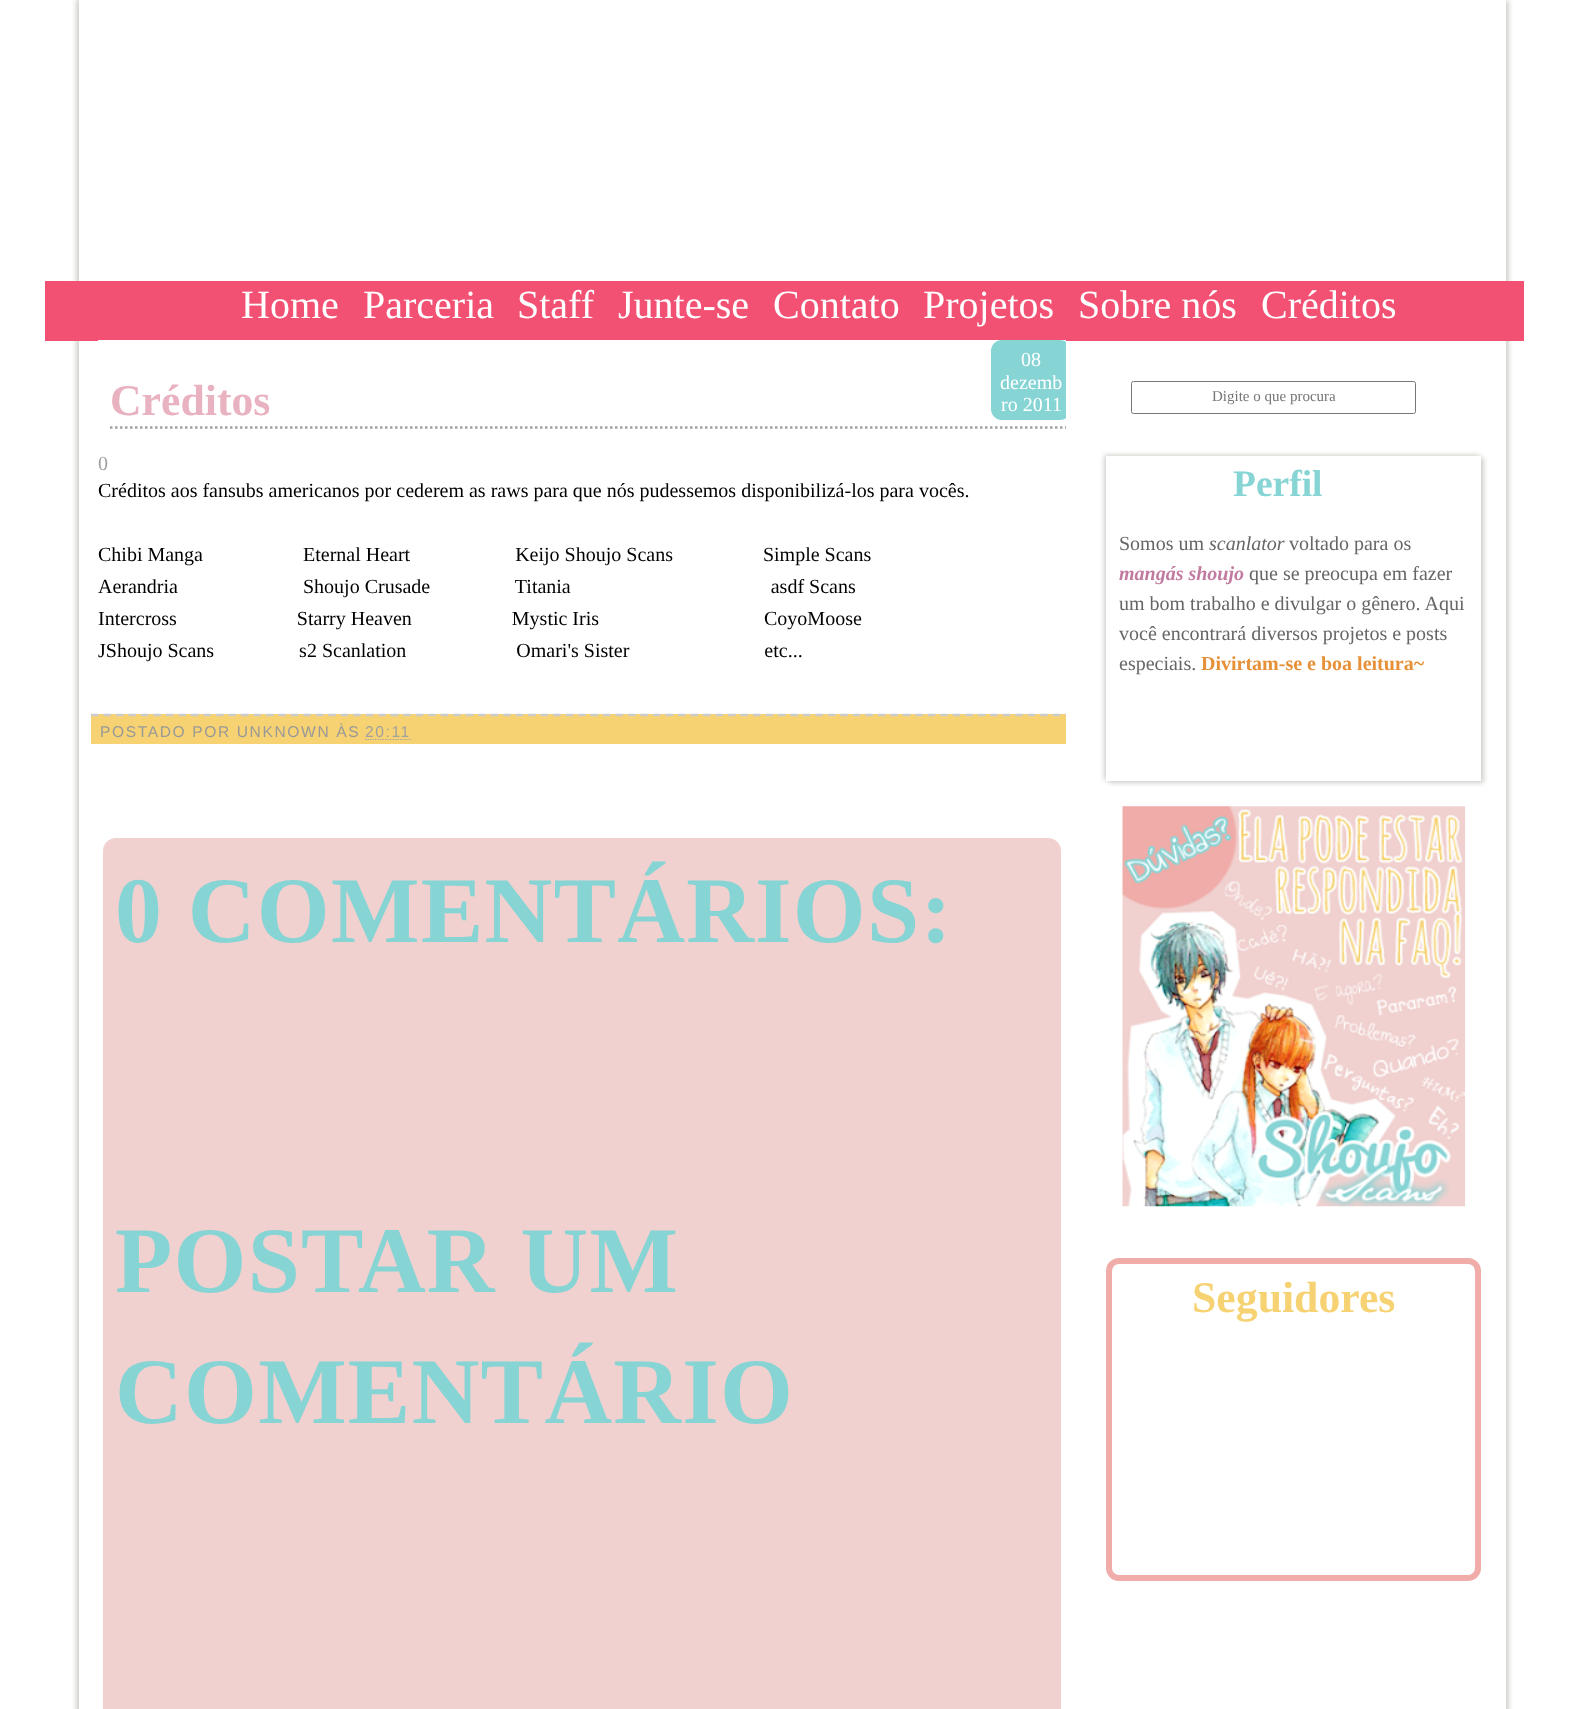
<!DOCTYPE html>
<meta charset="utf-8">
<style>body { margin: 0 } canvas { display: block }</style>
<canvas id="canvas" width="1585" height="1709"></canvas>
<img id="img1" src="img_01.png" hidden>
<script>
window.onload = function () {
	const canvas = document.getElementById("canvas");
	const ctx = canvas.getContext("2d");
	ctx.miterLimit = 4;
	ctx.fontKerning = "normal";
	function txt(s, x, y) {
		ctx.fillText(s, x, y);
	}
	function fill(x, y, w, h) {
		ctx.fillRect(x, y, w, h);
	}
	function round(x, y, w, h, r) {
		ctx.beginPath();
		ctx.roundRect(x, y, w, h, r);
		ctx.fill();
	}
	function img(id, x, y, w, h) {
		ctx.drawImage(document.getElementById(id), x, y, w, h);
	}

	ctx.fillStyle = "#FFFFFF";
	fill(0, 0, 1585, 1709);
	ctx.save();
	ctx.beginPath();
	ctx.moveTo(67, 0);
	ctx.lineTo(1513, 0);
	ctx.lineTo(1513, 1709);
	ctx.lineTo(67, 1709);
	ctx.closePath();
	ctx.moveTo(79, 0);
	ctx.lineTo(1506, 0);
	ctx.lineTo(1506, 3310);
	ctx.lineTo(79, 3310);
	ctx.closePath();
	ctx.clip("evenodd");
	ctx.fillStyle = "#D3D2CE";
	ctx.filter = "blur(2.5px)";
	ctx.beginPath();
	ctx.rect(76, -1, 1428, 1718);
	ctx.fill();
	ctx.filter = "none";
	ctx.restore();
	ctx.save();
	ctx.beginPath();
	ctx.moveTo(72, 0);
	ctx.lineTo(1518, 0);
	ctx.lineTo(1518, 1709);
	ctx.lineTo(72, 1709);
	ctx.closePath();
	ctx.moveTo(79, 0);
	ctx.lineTo(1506, 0);
	ctx.lineTo(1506, 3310);
	ctx.lineTo(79, 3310);
	ctx.closePath();
	ctx.clip("evenodd");
	ctx.fillStyle = "#D3D2CE";
	ctx.filter = "blur(2.5px)";
	ctx.beginPath();
	ctx.rect(81, 1, 1428, 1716);
	ctx.fill();
	ctx.filter = "none";
	ctx.restore();
	ctx.fillStyle = "#F35173";
	fill(45, 281, 1479, 60);
	ctx.fillStyle = "#FFFFFF";
	fill(98, 340, 968, 1);
	ctx.beginPath();
	ctx.moveTo(110, 427.5);
	ctx.lineTo(1066, 427.5);
	ctx.strokeStyle = "#A1A1A1";
	ctx.lineWidth = 2.5;
	ctx.setLineDash([2.5, 2.5]);
	ctx.stroke();
	ctx.fillStyle = "#F6D272";
	fill(91, 714, 975, 30);
	ctx.save();
	ctx.beginPath();
	ctx.rect(91, 328, 975, 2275);
	ctx.clip();
	ctx.beginPath();
	ctx.moveTo(91, 715);
	ctx.lineTo(1072.5, 715);
	ctx.strokeStyle = "#CCCCCC";
	ctx.setLineDash([7.5, 4.99]);
	ctx.stroke();
	ctx.restore();
	ctx.beginPath();
	ctx.moveTo(365, 739.5);
	ctx.lineTo(411, 739.5);
	ctx.lineWidth = 1.2;
	ctx.setLineDash([1.25, 1.25]);
	ctx.stroke();
	ctx.save();
	ctx.beginPath();
	ctx.rect(91, 328, 975, 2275);
	ctx.clip();
	ctx.fillStyle = "#87D4D5";
	round(991, 340, 80, 80, 11);
	ctx.restore();
	ctx.fillStyle = "#F0D1CF";
	round(103, 838, 958, 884, 13);
	ctx.beginPath();
	ctx.roundRect(1131.5, 381.5, 284, 32, 2);
	ctx.strokeStyle = "#767676";
	ctx.lineWidth = 1;
	ctx.setLineDash([]);
	ctx.stroke();
	ctx.fillStyle = "#D3D2CE";
	ctx.filter = "blur(2.5px)";
	ctx.beginPath();
	ctx.rect(1104, 455, 375, 325);
	ctx.fill();
	ctx.filter = "none";
	ctx.filter = "blur(2.5px)";
	ctx.beginPath();
	ctx.rect(1109, 458, 375, 325);
	ctx.fill();
	ctx.filter = "none";
	ctx.fillStyle = "#FFFFFF";
	fill(1106, 456, 375, 325);
	img("img1", 1122, 806, 343, 401);
	ctx.beginPath();
	ctx.roundRect(1109, 1261, 369, 317, 10);
	ctx.strokeStyle = "#F0ACA8";
	ctx.lineWidth = 6;
	ctx.stroke();
	ctx.font = "40px Liberation Serif";
	txt("Home", 241, 318);
	txt("Parceria", 363, 318);
	txt("Staff", 517, 318);
	txt("Junte-se", 618, 318);
	txt("Contato", 773, 318);
	txt("Projetos", 923, 318);
	txt("Sobre nós", 1078, 318);
	txt("Créditos", 1261, 318);
	ctx.font = "bold 43.75px Liberation Serif";
	ctx.fillStyle = "#E9B2C1";
	txt("Créditos", 110, 415);
	ctx.font = "20px Liberation Serif";
	ctx.fillStyle = "#A1A1A1";
	txt("0", 98, 470);
	ctx.fillStyle = "#000000";
	txt("Créditos aos fansubs americanos por cederem as raws para que nós pudessemos disponibilizá-los para vocês.", 98, 497);
	txt("Chibi Manga                    Eternal Heart                     Keijo Shoujo Scans                  Simple Scans", 98, 561);
	txt("Aerandria                         Shoujo Crusade                 Titania                                        asdf Scans", 98, 593);
	txt("Intercross                        Starry Heaven                    Mystic Iris                                 CoyoMoose", 98, 625);
	txt("JShoujo Scans                 s2 Scanlation                      Omari's Sister                           etc...", 98, 657);
	ctx.letterSpacing = "1.6px";
	ctx.font = "15.6px Liberation Sans";
	ctx.fillStyle = "#999999";
	txt("POSTADO POR UNKNOWN ÀS", 100, 737);
	ctx.fillStyle = "#A1A1A1";
	txt("20:11", 365, 737);
	ctx.letterSpacing = "0px";
	ctx.font = "20px Liberation Serif";
	ctx.fillStyle = "#FFFFFF";
	txt("08", 1021, 366);
	txt("dezemb", 1000, 389);
	txt("ro 2011", 1001, 411);
	ctx.letterSpacing = "1.25px";
	ctx.font = "bold 93.75px Liberation Serif";
	ctx.fillStyle = "#87D4D5";
	txt("0 COMENTÁRIOS:", 115, 942);
	txt("POSTAR UM", 115, 1292);
	txt("COMENTÁRIO", 115, 1423);
	ctx.letterSpacing = "0px";
	ctx.font = "15px Liberation Serif";
	ctx.fillStyle = "#757575";
	txt("Digite o que procura", 1212, 401);
	ctx.font = "bold 37.5px Liberation Serif";
	ctx.fillStyle = "#87D4D5";
	txt("Perfil", 1233, 496);
	ctx.font = "20px Liberation Serif";
	ctx.fillStyle = "#666666";
	txt("Somos um", 1119, 550);
	ctx.font = "italic 20px Liberation Serif";
	txt("scanlator", 1209, 550);
	ctx.font = "20px Liberation Serif";
	txt("voltado para os", 1289, 550);
	ctx.font = "italic bold 20px Liberation Serif";
	ctx.fillStyle = "#C27BA0";
	txt("mangás shoujo", 1119, 580);
	ctx.font = "20px Liberation Serif";
	ctx.fillStyle = "#666666";
	txt("que se preocupa em fazer", 1249, 580);
	txt("um bom trabalho e divulgar o gênero. Aqui", 1119, 610);
	txt("você encontrará diversos projetos e posts", 1119, 640);
	txt("especiais.", 1119, 670);
	ctx.font = "bold 20px Liberation Serif";
	ctx.fillStyle = "#E69138";
	txt("Divirtam-se e boa leitura~", 1201, 670);
	ctx.font = "bold 43.75px Liberation Serif";
	ctx.fillStyle = "#F6D272";
	txt("Seguidores", 1192, 1312);
};
</script>
